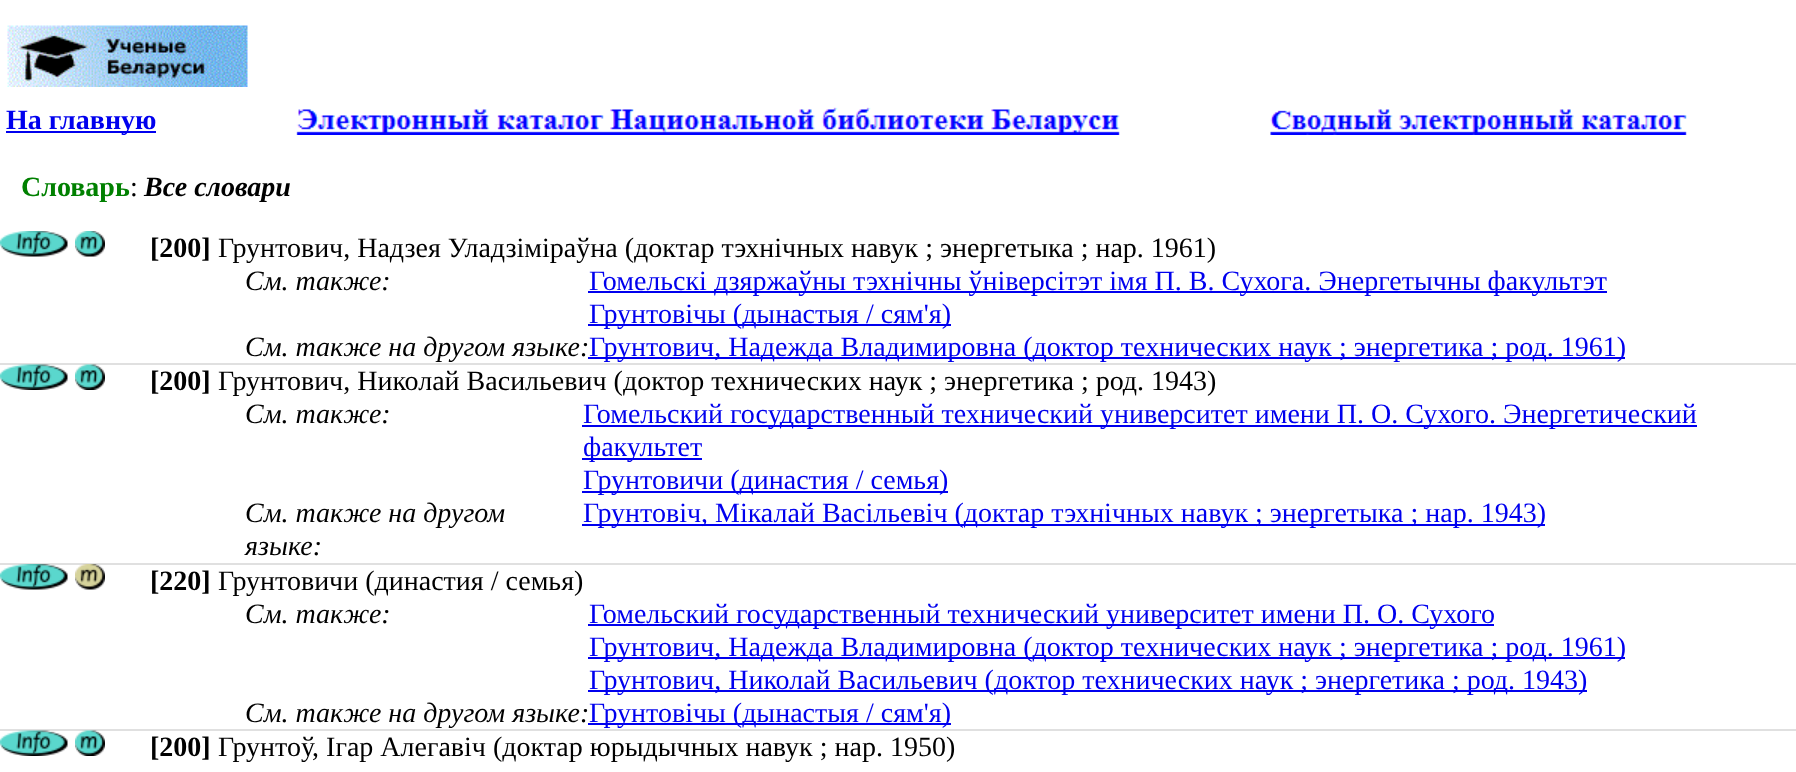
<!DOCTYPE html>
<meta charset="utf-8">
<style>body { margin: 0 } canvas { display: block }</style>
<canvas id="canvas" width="1796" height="772"></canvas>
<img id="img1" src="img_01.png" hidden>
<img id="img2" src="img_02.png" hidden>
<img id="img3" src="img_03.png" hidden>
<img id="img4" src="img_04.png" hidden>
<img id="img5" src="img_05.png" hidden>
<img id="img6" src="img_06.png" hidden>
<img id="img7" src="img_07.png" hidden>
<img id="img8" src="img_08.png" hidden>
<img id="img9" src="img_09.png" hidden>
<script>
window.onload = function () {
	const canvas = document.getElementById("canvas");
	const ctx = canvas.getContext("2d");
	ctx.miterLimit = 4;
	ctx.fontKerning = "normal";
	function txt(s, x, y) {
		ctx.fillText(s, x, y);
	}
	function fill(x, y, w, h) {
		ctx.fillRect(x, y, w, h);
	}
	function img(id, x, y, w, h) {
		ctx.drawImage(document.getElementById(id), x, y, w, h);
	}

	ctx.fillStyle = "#FFFFFF";
	fill(0, 0, 1796, 772);
	img("img1", 7, 25, 241, 62);
	ctx.fillStyle = "#0000EE";
	fill(6, 131, 150, 2);
	img("img2", 296, 107, 824, 28);
	img("img3", 1270, 109, 417, 26);
	img("img4", 0, 231, 68, 26);
	img("img5", 75, 231, 30, 26);
	ctx.fillStyle = "#E0E0E0";
	fill(0, 363, 1796, 2);
	ctx.fillStyle = "#0000EE";
	fill(588, 291, 1019, 2);
	fill(588, 324, 363, 2);
	fill(588, 357, 1037, 2);
	img("img6", 0, 364, 68, 26);
	img("img7", 75, 364, 30, 26);
	ctx.fillStyle = "#E0E0E0";
	fill(0, 563, 1796, 2);
	ctx.fillStyle = "#0000EE";
	fill(582, 425, 1115, 2);
	fill(582, 458, 120, 2);
	fill(582, 491, 366, 2);
	fill(582, 524, 963, 2);
	img("img8", 0, 564, 68, 26);
	img("img9", 75, 564, 30, 26);
	ctx.fillStyle = "#E0E0E0";
	fill(0, 729, 1796, 2);
	ctx.fillStyle = "#0000EE";
	fill(588, 624, 906, 2);
	fill(588, 657, 1037, 2);
	fill(588, 690, 999, 2);
	fill(588, 723, 363, 2);
	img("img6", 0, 730, 68, 26);
	img("img7", 75, 730, 30, 26);
	ctx.font = "bold 28px Liberation Serif";
	txt("На главную", 6, 129);
	ctx.fillStyle = "#008000";
	txt("Словарь", 21, 196);
	ctx.font = "28px Liberation Serif";
	ctx.fillStyle = "#000000";
	txt(":", 130, 196);
	ctx.font = "italic bold 28px Liberation Serif";
	txt("Все словари", 144, 196);
	ctx.font = "bold 28px Liberation Serif";
	txt("[200]", 150, 257);
	ctx.font = "28px Liberation Serif";
	txt("Грунтович, Надзея Уладзіміраўна (доктар тэхнічных навук ; энергетыка ; нар. 1961)", 218, 257);
	ctx.font = "italic 28px Liberation Serif";
	txt("См. также:", 245, 290);
	ctx.font = "28px Liberation Serif";
	ctx.fillStyle = "#0000EE";
	txt("Гомельскі дзяржаўны тэхнічны ўніверсітэт імя П. В. Сухога. Энергетычны факультэт", 589, 290);
	txt("Грунтовічы (дынастыя / сям'я)", 589, 323);
	ctx.font = "italic 28px Liberation Serif";
	ctx.fillStyle = "#000000";
	txt("См. также на другом языке:", 245, 356);
	ctx.font = "28px Liberation Serif";
	ctx.fillStyle = "#0000EE";
	txt("Грунтович, Надежда Владимировна (доктор технических наук ; энергетика ; род. 1961)", 589, 356);
	ctx.font = "bold 28px Liberation Serif";
	ctx.fillStyle = "#000000";
	txt("[200]", 150, 390);
	ctx.font = "28px Liberation Serif";
	txt("Грунтович, Николай Васильевич (доктор технических наук ; энергетика ; род. 1943)", 218, 390);
	ctx.font = "italic 28px Liberation Serif";
	txt("См. также:", 245, 423);
	ctx.font = "28px Liberation Serif";
	ctx.fillStyle = "#0000EE";
	txt("Гомельский государственный технический университет имени П. О. Сухого. Энергетический", 583, 423);
	txt("факультет", 583, 456);
	txt("Грунтовичи (династия / семья)", 583, 489);
	ctx.font = "italic 28px Liberation Serif";
	ctx.fillStyle = "#000000";
	txt("См. также на другом", 245, 522);
	txt("языке:", 245, 555);
	ctx.font = "28px Liberation Serif";
	ctx.fillStyle = "#0000EE";
	txt("Грунтовіч, Мікалай Васільевіч (доктар тэхнічных навук ; энергетыка ; нар. 1943)", 583, 522);
	ctx.font = "bold 28px Liberation Serif";
	ctx.fillStyle = "#000000";
	txt("[220]", 150, 590);
	ctx.font = "28px Liberation Serif";
	txt("Грунтовичи (династия / семья)", 218, 590);
	ctx.font = "italic 28px Liberation Serif";
	txt("См. также:", 245, 623);
	ctx.font = "28px Liberation Serif";
	ctx.fillStyle = "#0000EE";
	txt("Гомельский государственный технический университет имени П. О. Сухого", 589, 623);
	txt("Грунтович, Надежда Владимировна (доктор технических наук ; энергетика ; род. 1961)", 589, 656);
	txt("Грунтович, Николай Васильевич (доктор технических наук ; энергетика ; род. 1943)", 589, 689);
	ctx.font = "italic 28px Liberation Serif";
	ctx.fillStyle = "#000000";
	txt("См. также на другом языке:", 245, 722);
	ctx.font = "28px Liberation Serif";
	ctx.fillStyle = "#0000EE";
	txt("Грунтовічы (дынастыя / сям'я)", 589, 722);
	ctx.font = "bold 28px Liberation Serif";
	ctx.fillStyle = "#000000";
	txt("[200]", 150, 756);
	ctx.font = "28px Liberation Serif";
	txt("Грунтоў, Ігар Алегавіч (доктар юрыдычных навук ; нар. 1950)", 218, 756);
};
</script>
